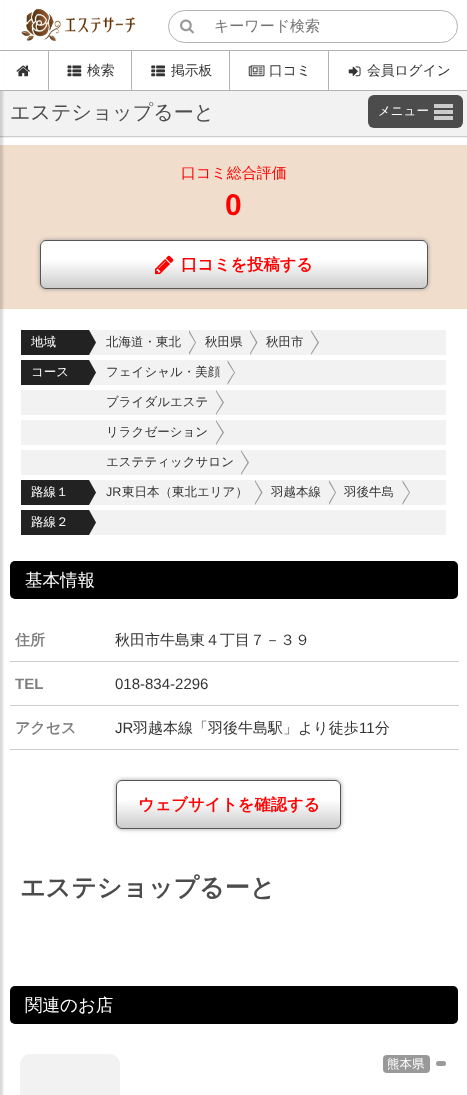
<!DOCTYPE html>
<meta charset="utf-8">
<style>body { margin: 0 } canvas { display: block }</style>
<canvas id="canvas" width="467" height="1095"></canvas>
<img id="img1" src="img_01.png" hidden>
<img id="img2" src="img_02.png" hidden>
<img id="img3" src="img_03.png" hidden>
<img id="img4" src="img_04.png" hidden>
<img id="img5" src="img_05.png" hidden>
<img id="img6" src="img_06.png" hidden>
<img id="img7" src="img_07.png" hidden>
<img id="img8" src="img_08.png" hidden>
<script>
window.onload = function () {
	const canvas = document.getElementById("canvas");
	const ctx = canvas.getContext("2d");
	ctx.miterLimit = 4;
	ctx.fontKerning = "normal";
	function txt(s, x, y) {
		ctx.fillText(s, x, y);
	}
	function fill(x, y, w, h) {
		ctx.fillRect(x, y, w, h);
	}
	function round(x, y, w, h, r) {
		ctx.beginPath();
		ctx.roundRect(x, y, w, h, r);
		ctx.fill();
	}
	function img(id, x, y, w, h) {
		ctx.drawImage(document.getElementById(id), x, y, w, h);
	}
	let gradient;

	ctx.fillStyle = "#FFFFFF";
	fill(0, 0, 467, 1095);
	ctx.fillStyle = "#F2F2F2";
	fill(0, 91, 467, 47);
	ctx.fillStyle = "#CCCCCC";
	fill(0, 136, 467, 1);
	ctx.fillStyle = "#F0DDCC";
	fill(0, 145, 467, 164);
	ctx.fillStyle = "rgba(0, 0, 0, 0.15)";
	ctx.filter = "blur(1px)";
	ctx.beginPath();
	ctx.rect(-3, 0, 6, 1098);
	ctx.fill();
	ctx.filter = "none";
	ctx.fillStyle = "#FFFFFF";
	fill(0, 0, 4, 90);
	ctx.fillStyle = "#B2B2B2";
	fill(0, 90, 467, 1);
	img("img1", 21, 8, 115, 34);
	ctx.beginPath();
	ctx.roundRect(168.5, 10.5, 289, 32, 16);
	ctx.strokeStyle = "#B2B2B2";
	ctx.stroke();
	img("img2", 180, 19, 14, 15);
	fill(0, 50, 467, 1);
	img("img3", 16, 65, 14, 12);
	fill(48, 51, 1, 39);
	img("img4", 67, 65, 15, 12);
	fill(131, 51, 1, 39);
	img("img5", 151, 65, 14, 12);
	fill(229, 51, 1, 39);
	img("img6", 248, 65, 17, 12);
	fill(328, 51, 1, 39);
	img("img7", 348, 66, 13, 11);
	ctx.fillStyle = "#4C4C4C";
	round(368, 95, 95, 33, 6);
	ctx.fillStyle = "#CCCCCC";
	fill(434, 104, 19, 4);
	fill(434, 116, 19, 4);
	fill(434, 110, 19, 4);
	ctx.fillStyle = "#999999";
	ctx.filter = "blur(2px)";
	ctx.beginPath();
	ctx.roundRect(40, 240, 388, 49, 6);
	ctx.fill();
	ctx.filter = "none";
	ctx.save();
	ctx.beginPath();
	ctx.roundRect(40, 240, 388, 49, 6);
	ctx.clip();
	gradient = ctx.createLinearGradient(234, 241, 234, 288);
	gradient.addColorStop(0.4, "#FFFFFF");
	gradient.addColorStop(1, "#CCCCCC");
	ctx.fillStyle = gradient;
	fill(40, 241, 388, 47);
	ctx.restore();
	ctx.beginPath();
	ctx.roundRect(40.5, 240.5, 387, 48, 5.5);
	ctx.strokeStyle = "#555555";
	ctx.stroke();
	img("img8", 155, 255, 19, 20);
	ctx.fillStyle = "#222222";
	fill(21, 330, 68, 25);
	ctx.fillStyle = "#F2F2F2";
	fill(89, 330, 357, 25);
	ctx.fillStyle = "#222222";
	ctx.beginPath();
	ctx.moveTo(89, 355);
	ctx.lineTo(89, 330);
	ctx.lineTo(96, 342.5);
	ctx.closePath();
	ctx.fill();
	ctx.fillStyle = "#999999";
	ctx.beginPath();
	ctx.moveTo(189, 355);
	ctx.lineTo(189, 330);
	ctx.lineTo(196, 342.5);
	ctx.closePath();
	ctx.fill();
	ctx.fillStyle = "#F2F2F2";
	ctx.beginPath();
	ctx.moveTo(187.5, 355);
	ctx.lineTo(187.5, 330);
	ctx.lineTo(195, 342.5);
	ctx.closePath();
	ctx.fill();
	ctx.fillStyle = "#999999";
	ctx.beginPath();
	ctx.moveTo(250, 355);
	ctx.lineTo(250, 330);
	ctx.lineTo(257.5, 342.5);
	ctx.closePath();
	ctx.fill();
	ctx.fillStyle = "#F2F2F2";
	ctx.beginPath();
	ctx.moveTo(249, 355);
	ctx.lineTo(249, 330);
	ctx.lineTo(256, 342.5);
	ctx.closePath();
	ctx.fill();
	ctx.fillStyle = "#999999";
	ctx.beginPath();
	ctx.moveTo(311, 355);
	ctx.lineTo(311, 330);
	ctx.lineTo(319, 342.5);
	ctx.closePath();
	ctx.fill();
	ctx.fillStyle = "#F2F2F2";
	ctx.beginPath();
	ctx.moveTo(310, 355);
	ctx.lineTo(310, 330);
	ctx.lineTo(317.5, 342.5);
	ctx.closePath();
	ctx.fill();
	ctx.fillStyle = "#222222";
	fill(21, 360, 68, 25);
	ctx.fillStyle = "#F2F2F2";
	fill(89, 360, 357, 25);
	ctx.fillStyle = "#222222";
	ctx.beginPath();
	ctx.moveTo(89, 385);
	ctx.lineTo(89, 360);
	ctx.lineTo(96, 372.5);
	ctx.closePath();
	ctx.fill();
	ctx.fillStyle = "#F2F2F2";
	fill(21, 390, 425, 25);
	fill(21, 420, 425, 25);
	fill(21, 450, 425, 25);
	ctx.fillStyle = "#222222";
	fill(21, 480, 68, 25);
	ctx.fillStyle = "#F2F2F2";
	fill(89, 480, 357, 25);
	ctx.fillStyle = "#222222";
	ctx.beginPath();
	ctx.moveTo(89, 505);
	ctx.lineTo(89, 480);
	ctx.lineTo(96, 492.5);
	ctx.closePath();
	ctx.fill();
	ctx.fillStyle = "#999999";
	ctx.beginPath();
	ctx.moveTo(255, 505);
	ctx.lineTo(255, 480);
	ctx.lineTo(262.5, 492.5);
	ctx.closePath();
	ctx.fill();
	ctx.fillStyle = "#F2F2F2";
	ctx.beginPath();
	ctx.moveTo(254, 505);
	ctx.lineTo(254, 480);
	ctx.lineTo(261, 492.5);
	ctx.closePath();
	ctx.fill();
	ctx.fillStyle = "#999999";
	ctx.beginPath();
	ctx.moveTo(329, 505);
	ctx.lineTo(329, 480);
	ctx.lineTo(336, 492.5);
	ctx.closePath();
	ctx.fill();
	ctx.fillStyle = "#F2F2F2";
	ctx.beginPath();
	ctx.moveTo(327.5, 505);
	ctx.lineTo(327.5, 480);
	ctx.lineTo(335, 492.5);
	ctx.closePath();
	ctx.fill();
	ctx.fillStyle = "#999999";
	ctx.beginPath();
	ctx.moveTo(402.5, 505);
	ctx.lineTo(402.5, 480);
	ctx.lineTo(410, 492.5);
	ctx.closePath();
	ctx.fill();
	ctx.fillStyle = "#F2F2F2";
	ctx.beginPath();
	ctx.moveTo(401, 505);
	ctx.lineTo(401, 480);
	ctx.lineTo(409, 492.5);
	ctx.closePath();
	ctx.fill();
	ctx.fillStyle = "#222222";
	fill(21, 510, 68, 25);
	ctx.fillStyle = "#F2F2F2";
	fill(89, 510, 357, 25);
	ctx.fillStyle = "#222222";
	ctx.beginPath();
	ctx.moveTo(89, 535);
	ctx.lineTo(89, 510);
	ctx.lineTo(96, 522.5);
	ctx.closePath();
	ctx.fill();
	ctx.fillStyle = "#000000";
	round(10, 561, 448, 38, 5);
	ctx.fillStyle = "#CCCCCC";
	fill(10, 661, 449, 1);
	fill(10, 705, 449, 1);
	fill(10, 749, 449, 1);
	ctx.fillStyle = "#999999";
	ctx.filter = "blur(2px)";
	ctx.beginPath();
	ctx.roundRect(116, 780, 225, 49, 6);
	ctx.fill();
	ctx.filter = "none";
	ctx.save();
	ctx.beginPath();
	ctx.roundRect(116, 780, 225, 49, 6);
	ctx.clip();
	gradient = ctx.createLinearGradient(229, 781, 229, 828);
	gradient.addColorStop(0.4, "#FFFFFF");
	gradient.addColorStop(1, "#CCCCCC");
	ctx.fillStyle = gradient;
	fill(116, 781, 225, 47);
	ctx.restore();
	ctx.beginPath();
	ctx.roundRect(116.5, 780.5, 224, 48, 5.5);
	ctx.stroke();
	ctx.fillStyle = "#000000";
	round(10, 986, 448, 38, 5);
	ctx.fillStyle = "#F2F2F2";
	round(20, 1054, 100, 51, 10);
	ctx.fillStyle = "#999999";
	round(383, 1055, 47, 18, 4);
	round(436, 1061, 10, 5, 2.5);
	ctx.font = "500 15px WenQuanYi Zen Hei";
	ctx.fillStyle = "#757575";
	txt("キーワード検索", 214, 31);
	ctx.font = "500 13.75px WenQuanYi Zen Hei";
	ctx.fillStyle = "#333333";
	txt("検索", 87, 75);
	txt("掲示板", 171, 75);
	txt("口コミ", 269, 75);
	txt("会員ログイン", 367, 75);
	ctx.font = "500 20px WenQuanYi Zen Hei";
	ctx.fillStyle = "#4C4C4C";
	txt("エステショップるーと", 10, 119);
	ctx.font = "500 12.5px WenQuanYi Zen Hei";
	ctx.fillStyle = "#FFFFFF";
	txt("メニュー", 378, 115);
	ctx.font = "500 15px WenQuanYi Zen Hei";
	ctx.fillStyle = "#FF0000";
	txt("口コミ総合評価", 181, 178);
	ctx.font = "bold 30px Liberation Sans";
	txt("0", 225, 215);
	ctx.font = "bold 16.25px WenQuanYi Zen Hei";
	txt("口コミを投稿する", 181, 270);
	ctx.font = "500 12.5px WenQuanYi Zen Hei";
	ctx.fillStyle = "#FFFFFF";
	txt("地域", 31, 346);
	ctx.fillStyle = "#333333";
	txt("北海道・東北", 106, 346);
	txt("秋田県", 205, 346);
	txt("秋田市", 266, 346);
	ctx.fillStyle = "#FFFFFF";
	txt("コース", 31, 376);
	ctx.fillStyle = "#333333";
	txt("フェイシャル・美顔", 106, 376);
	ctx.fillStyle = "#999999";
	ctx.beginPath();
	ctx.moveTo(227.5, 385);
	ctx.lineTo(227.5, 360);
	ctx.lineTo(235, 372.5);
	ctx.closePath();
	ctx.moveTo(216, 415);
	ctx.lineTo(216, 390);
	ctx.lineTo(224, 402.5);
	ctx.closePath();
	ctx.fill();
	ctx.fillStyle = "#F2F2F2";
	ctx.beginPath();
	ctx.moveTo(226, 385);
	ctx.lineTo(226, 360);
	ctx.lineTo(234, 372.5);
	ctx.closePath();
	ctx.moveTo(215, 415);
	ctx.lineTo(215, 390);
	ctx.lineTo(222.5, 402.5);
	ctx.closePath();
	ctx.fill();
	ctx.fillStyle = "#333333";
	txt("ブライダルエステ", 106, 406);
	txt("リラクゼーション", 106, 436);
	txt("エステティックサロン", 106, 466);
	ctx.fillStyle = "#999999";
	ctx.beginPath();
	ctx.moveTo(216, 445);
	ctx.lineTo(216, 420);
	ctx.lineTo(224, 432.5);
	ctx.closePath();
	ctx.moveTo(241, 475);
	ctx.lineTo(241, 450);
	ctx.lineTo(249, 462.5);
	ctx.closePath();
	ctx.fill();
	ctx.fillStyle = "#F2F2F2";
	ctx.beginPath();
	ctx.moveTo(215, 445);
	ctx.lineTo(215, 420);
	ctx.lineTo(222.5, 432.5);
	ctx.closePath();
	ctx.moveTo(240, 475);
	ctx.lineTo(240, 450);
	ctx.lineTo(247.5, 462.5);
	ctx.closePath();
	ctx.fill();
	ctx.fillStyle = "#FFFFFF";
	txt("路線１", 31, 496);
	ctx.font = "12.5px Liberation Sans";
	ctx.fillStyle = "#333333";
	txt("JR", 106, 496);
	ctx.font = "500 12.5px WenQuanYi Zen Hei";
	txt("東日本（東北エリア）", 122, 496);
	txt("羽越本線", 271, 496);
	txt("羽後牛島", 344, 496);
	ctx.fillStyle = "#FFFFFF";
	txt("路線２", 31, 526);
	ctx.font = "500 17.5px WenQuanYi Zen Hei";
	txt("基本情報", 25, 586);
	ctx.font = "bold 15px WenQuanYi Zen Hei";
	ctx.fillStyle = "#808080";
	txt("住所", 15, 645);
	ctx.font = "500 15px WenQuanYi Zen Hei";
	ctx.fillStyle = "#333333";
	txt("秋田市牛島東４丁目７－３９", 115, 645);
	ctx.font = "bold 15px Liberation Sans";
	ctx.fillStyle = "#808080";
	txt("TEL", 15, 689);
	ctx.font = "15px Liberation Sans";
	ctx.fillStyle = "#333333";
	txt("018-834-2296", 115, 689);
	ctx.font = "bold 15px WenQuanYi Zen Hei";
	ctx.fillStyle = "#808080";
	txt("アクセス", 15, 733);
	ctx.font = "15px Liberation Sans";
	ctx.fillStyle = "#333333";
	txt("JR", 115, 733);
	ctx.font = "500 15px WenQuanYi Zen Hei";
	txt("羽越本線「羽後牛島駅」より徒歩", 133, 733);
	ctx.font = "15px Liberation Sans";
	txt("11", 359, 733);
	ctx.font = "500 15px WenQuanYi Zen Hei";
	txt("分", 375, 733);
	ctx.font = "bold 16.25px WenQuanYi Zen Hei";
	ctx.fillStyle = "#FF0000";
	txt("ウェブサイトを確認する", 138, 810);
	ctx.font = "bold 25px WenQuanYi Zen Hei";
	ctx.fillStyle = "#4C4C4C";
	txt("エステショップるーと", 20, 896);
	ctx.font = "500 17.5px WenQuanYi Zen Hei";
	ctx.fillStyle = "#FFFFFF";
	txt("関連のお店", 25, 1011);
	ctx.font = "500 12.5px WenQuanYi Zen Hei";
	txt("熊本県", 387, 1068);
};
</script>
